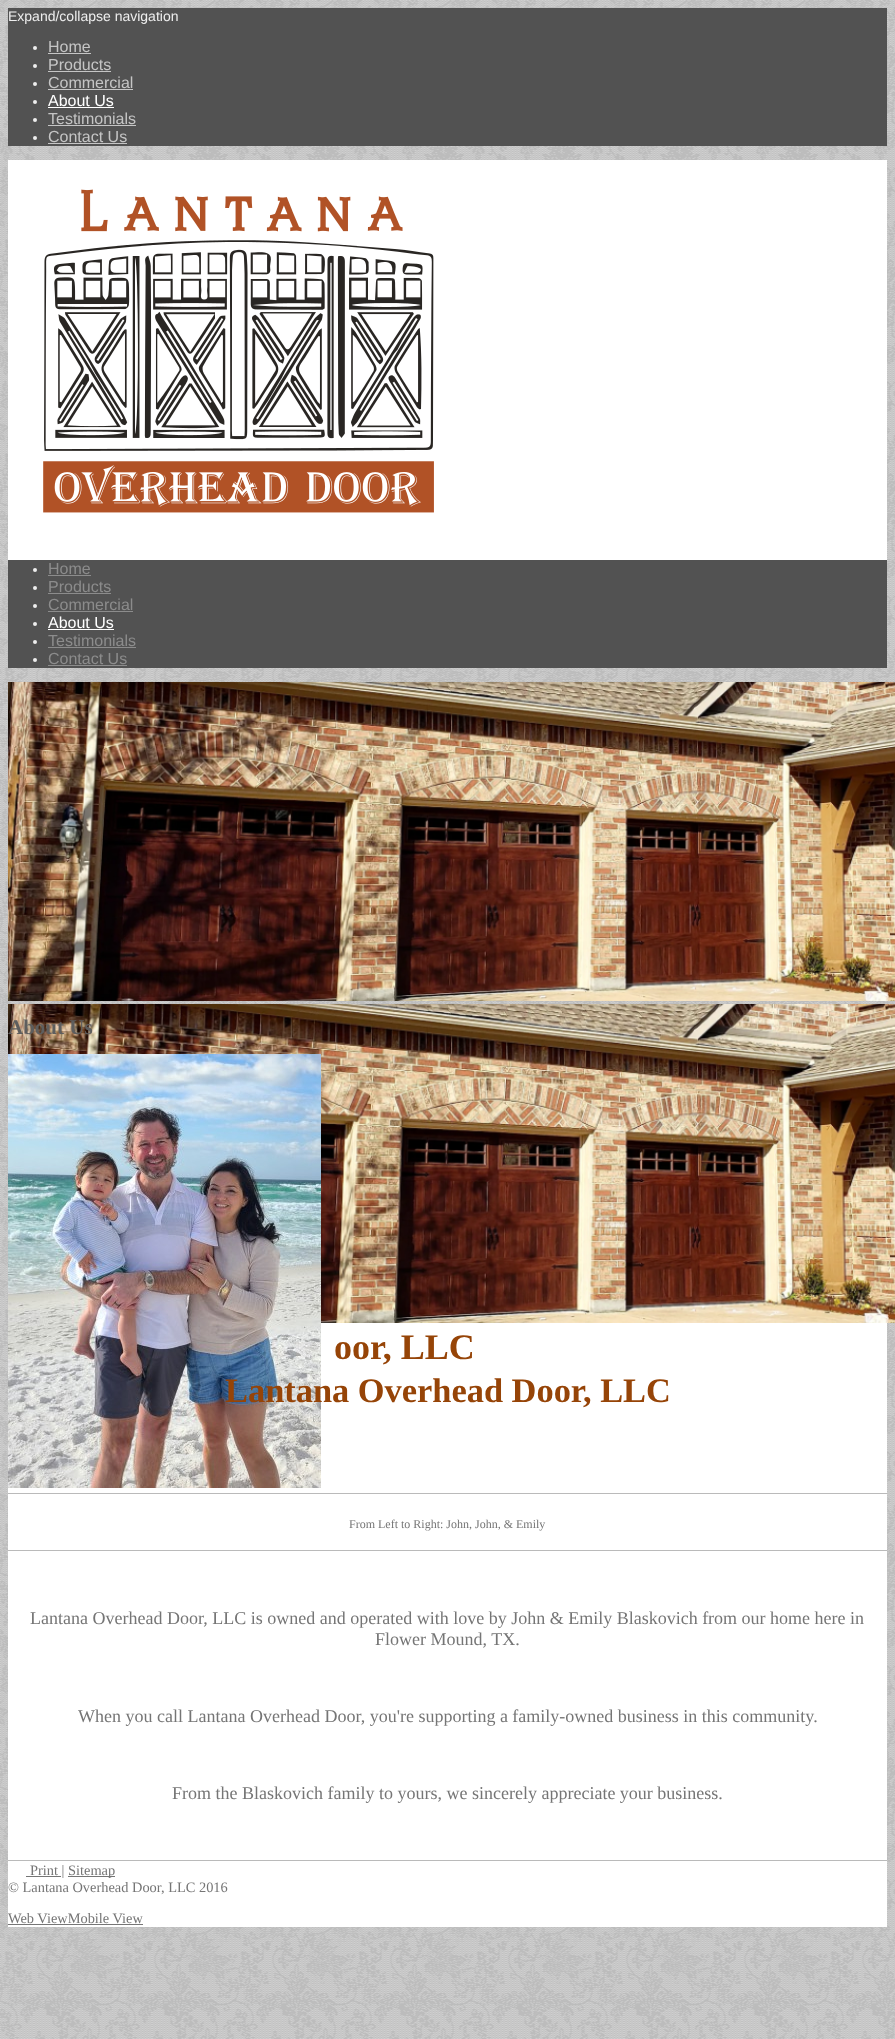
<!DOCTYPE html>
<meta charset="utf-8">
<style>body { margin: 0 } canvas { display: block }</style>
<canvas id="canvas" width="895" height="2039"></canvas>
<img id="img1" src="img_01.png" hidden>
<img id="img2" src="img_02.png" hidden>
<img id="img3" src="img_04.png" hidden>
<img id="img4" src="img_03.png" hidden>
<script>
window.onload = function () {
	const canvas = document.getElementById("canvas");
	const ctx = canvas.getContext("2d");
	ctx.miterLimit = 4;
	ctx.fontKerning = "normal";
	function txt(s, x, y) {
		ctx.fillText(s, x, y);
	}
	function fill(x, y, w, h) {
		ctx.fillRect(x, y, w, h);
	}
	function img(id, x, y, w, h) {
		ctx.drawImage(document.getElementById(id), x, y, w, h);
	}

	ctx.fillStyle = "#FFFFFF";
	fill(0, 0, 895, 2039);
	img("img1", 0, 0, 895, 2039);
	ctx.fillStyle = "#525252";
	fill(8, 8, 879, 138);
	ctx.fillStyle = "#EEEEEE";
	ctx.beginPath();
	ctx.arc(35, 48, 2, 0, Math.PI * 2);
	ctx.fill();
	ctx.fillStyle = "#C5C5C5";
	fill(48, 53, 43, 1);
	ctx.fillStyle = "#EEEEEE";
	ctx.beginPath();
	ctx.arc(35, 66, 2, 0, Math.PI * 2);
	ctx.fill();
	ctx.fillStyle = "#C5C5C5";
	fill(48, 71, 63, 1);
	ctx.fillStyle = "#EEEEEE";
	ctx.beginPath();
	ctx.arc(35, 84, 2, 0, Math.PI * 2);
	ctx.fill();
	ctx.fillStyle = "#C5C5C5";
	fill(48, 89, 85, 1);
	ctx.fillStyle = "#EEEEEE";
	ctx.beginPath();
	ctx.arc(35, 102, 2, 0, Math.PI * 2);
	ctx.fill();
	ctx.fillStyle = "#FFFFFF";
	fill(48, 107, 66, 1);
	ctx.fillStyle = "#EEEEEE";
	ctx.beginPath();
	ctx.arc(35, 120, 2, 0, Math.PI * 2);
	ctx.fill();
	ctx.fillStyle = "#C5C5C5";
	fill(48, 125, 88, 1);
	ctx.fillStyle = "#EEEEEE";
	ctx.beginPath();
	ctx.arc(35, 138, 2, 0, Math.PI * 2);
	ctx.fill();
	ctx.fillStyle = "#C5C5C5";
	fill(48, 143, 79, 1);
	ctx.fillStyle = "#FFFFFF";
	fill(8, 160, 879, 400);
	img("img2", 43, 189, 391, 324);
	ctx.fillStyle = "#525252";
	fill(8, 560, 879, 108);
	ctx.fillStyle = "#EEEEEE";
	ctx.beginPath();
	ctx.arc(35, 570, 2, 0, Math.PI * 2);
	ctx.fill();
	ctx.fillStyle = "#8C8C8C";
	fill(48, 575, 43, 1);
	ctx.fillStyle = "#EEEEEE";
	ctx.beginPath();
	ctx.arc(35, 588, 2, 0, Math.PI * 2);
	ctx.fill();
	ctx.fillStyle = "#8C8C8C";
	fill(48, 593, 63, 1);
	ctx.fillStyle = "#EEEEEE";
	ctx.beginPath();
	ctx.arc(35, 606, 2, 0, Math.PI * 2);
	ctx.fill();
	ctx.fillStyle = "#8C8C8C";
	fill(48, 611, 85, 1);
	ctx.fillStyle = "#EEEEEE";
	ctx.beginPath();
	ctx.arc(35, 624, 2, 0, Math.PI * 2);
	ctx.fill();
	ctx.fillStyle = "#FFFFFF";
	fill(48, 629, 66, 1);
	ctx.fillStyle = "#EEEEEE";
	ctx.beginPath();
	ctx.arc(35, 642, 2, 0, Math.PI * 2);
	ctx.fill();
	ctx.fillStyle = "#8C8C8C";
	fill(48, 647, 88, 1);
	ctx.fillStyle = "#EEEEEE";
	ctx.beginPath();
	ctx.arc(35, 660, 2, 0, Math.PI * 2);
	ctx.fill();
	ctx.fillStyle = "#8C8C8C";
	fill(48, 665, 79, 1);
	ctx.fillStyle = "#FFFFFF";
	fill(8, 1323, 879, 537);
	img("img3", 8, 1004, 887, 319);
	img("img4", 8, 1054, 313, 434);
	ctx.fillStyle = "#BABABA";
	fill(8, 1493, 879, 1);
	fill(8, 1550, 879, 1);
	fill(8, 1860, 879, 1);
	img("img3", 8, 682, 887, 319);
	ctx.fillStyle = "#FFFFFF";
	fill(8, 1861, 879, 66);
	ctx.fillStyle = "#757575";
	fill(26, 1876, 35, 1);
	fill(68, 1876, 47, 1);
	fill(8, 1924, 135, 1);
	ctx.font = "14px Liberation Sans";
	ctx.fillStyle = "#EEEEEE";
	txt("Expand/collapse navigation", 8, 21);
	ctx.font = "16px Liberation Sans";
	ctx.fillStyle = "#C5C5C5";
	txt("Home", 48, 52);
	txt("Products", 48, 70);
	txt("Commercial", 48, 88);
	ctx.fillStyle = "#FFFFFF";
	txt("About Us", 48, 106);
	ctx.fillStyle = "#C5C5C5";
	txt("Testimonials", 48, 124);
	txt("Contact Us", 48, 142);
	ctx.fillStyle = "#8C8C8C";
	txt("Home", 48, 574);
	txt("Products", 48, 592);
	txt("Commercial", 48, 610);
	ctx.fillStyle = "#FFFFFF";
	txt("About Us", 48, 628);
	ctx.fillStyle = "#8C8C8C";
	txt("Testimonials", 48, 646);
	txt("Contact Us", 48, 664);
	ctx.font = "bold 21px Liberation Serif";
	ctx.fillStyle = "#5E5E5E";
	txt("About Us", 8, 1034);
	ctx.font = "12px Liberation Serif";
	ctx.fillStyle = "#757575";
	txt("From Left to Right: John, John, & Emily", 349, 1528);
	ctx.font = "18px Liberation Serif";
	txt("Lantana Overhead Door, LLC is owned and operated with love by John & Emily Blaskovich from our home here in", 30, 1624);
	txt("Flower Mound, TX.", 375, 1645);
	txt("When you call Lantana Overhead Door, you're supporting a family-owned business in this community.", 78, 1722);
	txt("From the Blaskovich family to yours, we sincerely appreciate your business.", 172, 1799);
	ctx.font = "bold 36px Liberation Serif";
	ctx.fillStyle = "#964407";
	txt("oor, LLC", 334, 1359);
	ctx.font = "bold 34.4px Liberation Serif";
	txt("Lantana Overhead Door, LLC", 225, 1402);
	ctx.font = "14.4px Liberation Serif";
	ctx.fillStyle = "#757575";
	txt("Print |", 30, 1875);
	txt("Sitemap", 68, 1875);
	txt("© Lantana Overhead Door, LLC 2016", 8, 1892);
	txt("Web ViewMobile View", 8, 1923);
};
</script>
